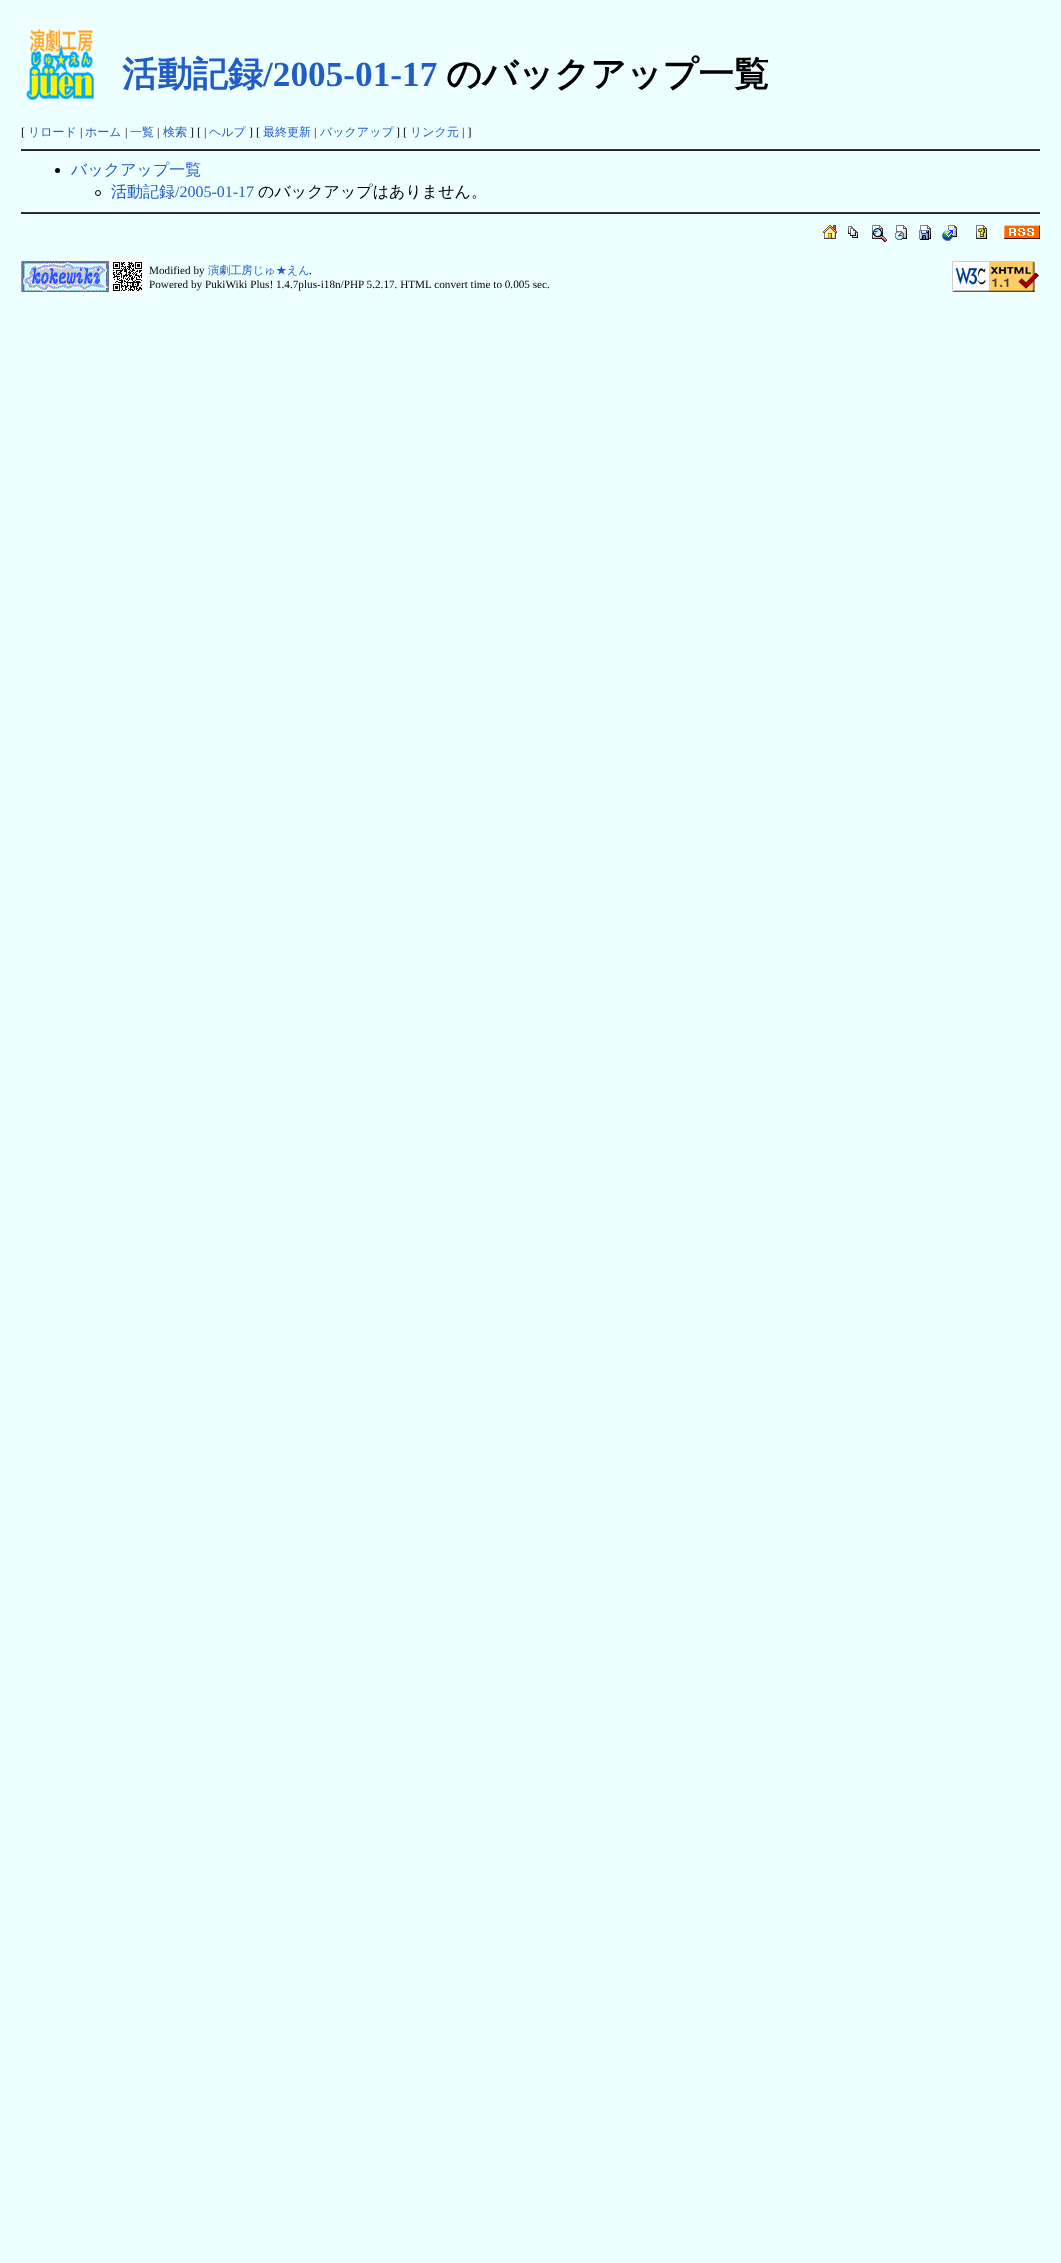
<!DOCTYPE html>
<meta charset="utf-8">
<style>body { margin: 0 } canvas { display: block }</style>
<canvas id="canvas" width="1061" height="2263"></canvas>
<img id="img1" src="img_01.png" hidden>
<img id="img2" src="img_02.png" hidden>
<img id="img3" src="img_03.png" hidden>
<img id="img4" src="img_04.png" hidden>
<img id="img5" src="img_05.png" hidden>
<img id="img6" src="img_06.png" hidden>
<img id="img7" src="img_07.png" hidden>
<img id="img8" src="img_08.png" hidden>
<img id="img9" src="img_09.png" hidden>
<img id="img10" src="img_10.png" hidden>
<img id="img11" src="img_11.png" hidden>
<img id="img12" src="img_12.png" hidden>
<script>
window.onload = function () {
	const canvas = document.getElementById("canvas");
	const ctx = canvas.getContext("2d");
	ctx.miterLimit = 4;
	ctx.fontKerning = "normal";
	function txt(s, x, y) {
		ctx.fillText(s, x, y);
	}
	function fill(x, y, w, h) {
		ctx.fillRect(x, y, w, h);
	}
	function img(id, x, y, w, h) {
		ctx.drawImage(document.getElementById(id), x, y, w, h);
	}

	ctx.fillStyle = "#EEFFFF";
	fill(0, 0, 1061, 2263);
	img("img1", 26, 29, 69, 72);
	ctx.fillStyle = "#333333";
	fill(21, 149, 1019, 1);
	ctx.fillStyle = "#222222";
	fill(21, 150, 1019, 1);
	ctx.fillStyle = "#000000";
	ctx.beginPath();
	ctx.arc(57.5, 170.5, 2.5, 0, Math.PI * 2);
	ctx.fill();
	ctx.beginPath();
	ctx.arc(98, 193, 2.5, 0, Math.PI * 2);
	ctx.strokeStyle = "#000000";
	ctx.stroke();
	ctx.fillStyle = "#333333";
	fill(21, 212, 1019, 1);
	ctx.fillStyle = "#222222";
	fill(21, 213, 1019, 1);
	img("img2", 823, 225, 14, 14);
	img("img3", 848, 226, 10, 12);
	img("img4", 872, 225, 15, 17);
	img("img5", 895, 225, 12, 15);
	img("img6", 919, 225, 12, 15);
	img("img7", 942, 225, 15, 16);
	img("img8", 976, 225, 11, 14);
	img("img9", 1004, 225, 36, 14);
	img("img10", 21, 261, 88, 31);
	img("img11", 109, 258, 37, 37);
	img("img12", 952, 261, 87, 31);
	ctx.font = "bold 35.25px WenQuanYi Zen Hei";
	ctx.fillStyle = "#215DC6";
	txt("活動記録", 122, 86);
	ctx.font = "bold 35.25px Liberation Serif";
	txt("/2005-01-17", 263, 86);
	ctx.font = "bold 35.25px WenQuanYi Zen Hei";
	ctx.fillStyle = "#000000";
	txt("のバックアップ一覧", 446, 86);
	ctx.font = "12px Liberation Serif";
	txt("[", 21, 136);
	ctx.font = "500 12px WenQuanYi Zen Hei";
	ctx.fillStyle = "#215DC6";
	txt("リロード", 28, 136);
	ctx.font = "12px Liberation Serif";
	ctx.fillStyle = "#000000";
	txt("|", 80, 136);
	ctx.font = "500 12px WenQuanYi Zen Hei";
	ctx.fillStyle = "#215DC6";
	txt("ホーム", 85, 136);
	ctx.font = "12px Liberation Serif";
	ctx.fillStyle = "#000000";
	txt("|", 125, 136);
	ctx.font = "500 12px WenQuanYi Zen Hei";
	ctx.fillStyle = "#215DC6";
	txt("一覧", 130, 136);
	ctx.font = "12px Liberation Serif";
	ctx.fillStyle = "#000000";
	txt("|", 157, 136);
	ctx.font = "500 12px WenQuanYi Zen Hei";
	ctx.fillStyle = "#215DC6";
	txt("検索", 163, 136);
	ctx.font = "12px Liberation Serif";
	ctx.fillStyle = "#000000";
	txt("] [ |", 190, 136);
	ctx.font = "500 12px WenQuanYi Zen Hei";
	ctx.fillStyle = "#215DC6";
	txt("ヘルプ", 209, 136);
	ctx.font = "12px Liberation Serif";
	ctx.fillStyle = "#000000";
	txt("] [", 249, 136);
	ctx.font = "500 12px WenQuanYi Zen Hei";
	ctx.fillStyle = "#215DC6";
	txt("最終更新", 263, 136);
	ctx.font = "12px Liberation Serif";
	ctx.fillStyle = "#000000";
	txt("|", 314, 136);
	ctx.font = "500 12px WenQuanYi Zen Hei";
	ctx.fillStyle = "#215DC6";
	txt("バックアップ", 320, 136);
	ctx.font = "12px Liberation Serif";
	ctx.fillStyle = "#000000";
	txt("] [", 396, 136);
	ctx.font = "500 12px WenQuanYi Zen Hei";
	ctx.fillStyle = "#215DC6";
	txt("リンク元", 410, 136);
	ctx.font = "12px Liberation Serif";
	ctx.fillStyle = "#000000";
	txt("| ]", 462, 136);
	ctx.font = "500 16px WenQuanYi Zen Hei";
	ctx.fillStyle = "#215DC6";
	txt("バックアップ一覧", 71, 175);
	txt("活動記録", 111, 197);
	ctx.font = "16px Liberation Serif";
	txt("/2005-01-17", 175, 197);
	ctx.font = "500 16px WenQuanYi Zen Hei";
	ctx.fillStyle = "#000000";
	txt("のバックアップはありません。", 258, 197);
	ctx.font = "11.2px Liberation Serif";
	txt("Modified by", 149, 274);
	ctx.font = "500 11.2px WenQuanYi Zen Hei";
	ctx.fillStyle = "#215DC6";
	txt("演劇工房じゅ★えん", 208, 274);
	ctx.font = "11.2px Liberation Serif";
	ctx.fillStyle = "#000000";
	txt(".", 309, 274);
	txt("Powered by PukiWiki Plus! 1.4.7plus-i18n/PHP 5.2.17. HTML convert time to 0.005 sec.", 149, 288);
};
</script>
